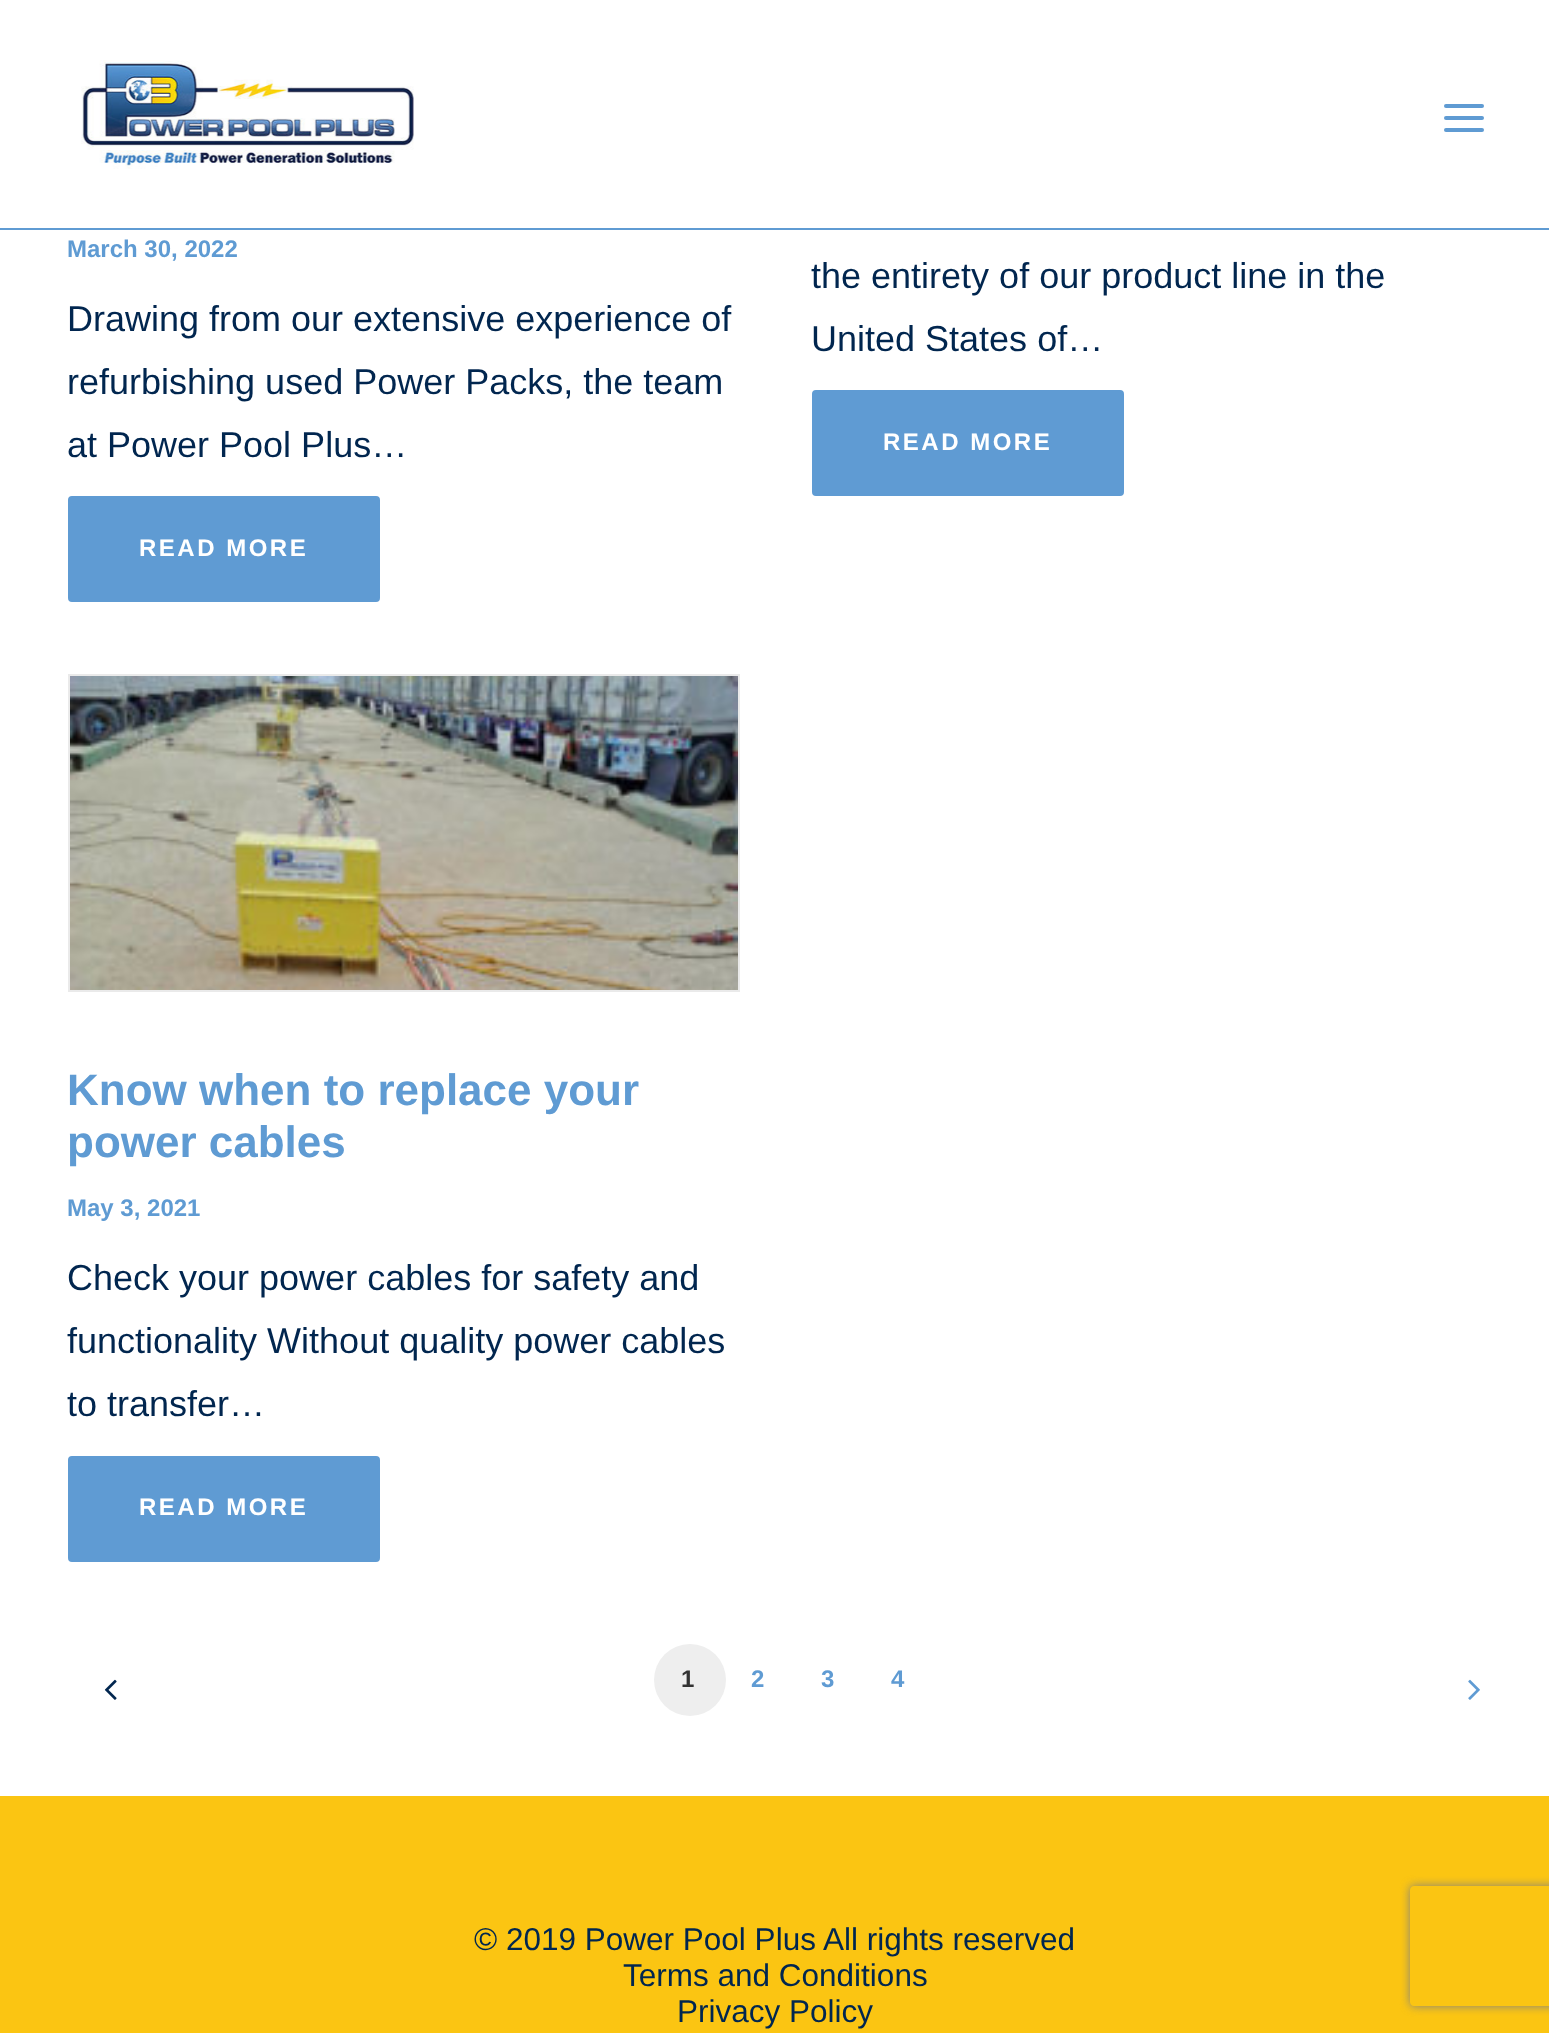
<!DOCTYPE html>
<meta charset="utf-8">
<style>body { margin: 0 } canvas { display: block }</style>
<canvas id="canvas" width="1549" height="2033"></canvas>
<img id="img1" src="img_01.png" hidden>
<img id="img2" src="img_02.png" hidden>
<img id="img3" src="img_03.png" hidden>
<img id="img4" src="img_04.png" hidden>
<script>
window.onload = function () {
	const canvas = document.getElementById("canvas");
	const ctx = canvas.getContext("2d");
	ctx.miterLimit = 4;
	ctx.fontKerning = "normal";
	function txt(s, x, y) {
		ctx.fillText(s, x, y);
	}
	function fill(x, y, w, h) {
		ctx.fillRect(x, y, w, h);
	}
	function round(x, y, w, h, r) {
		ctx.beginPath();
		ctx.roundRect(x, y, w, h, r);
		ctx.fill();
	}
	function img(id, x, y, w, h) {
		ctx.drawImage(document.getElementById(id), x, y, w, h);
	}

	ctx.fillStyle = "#FFFFFF";
	fill(0, 0, 1549, 2033);
	ctx.fillStyle = "#5F9BD3";
	fill(0, 228, 1549, 2);
	img("img1", 81, 60, 333, 109);
	round(1444, 116, 40, 4, 2);
	round(1444, 104, 40, 4, 2);
	round(1444, 128, 40, 4, 2);
	ctx.beginPath();
	ctx.roundRect(69, 497, 310, 104, 3);
	ctx.fill();
	ctx.strokeStyle = "#5F9BD3";
	ctx.lineWidth = 2;
	ctx.stroke();
	ctx.beginPath();
	ctx.roundRect(813, 391, 310, 104, 3);
	ctx.fill();
	ctx.stroke();
	ctx.strokeStyle = "#EAEAEA";
	ctx.strokeRect(69, 675, 670, 316);
	img("img2", 70, 676, 668, 314);
	ctx.beginPath();
	ctx.roundRect(69, 1457, 310, 104, 3);
	ctx.fill();
	ctx.strokeStyle = "#5F9BD3";
	ctx.stroke();
	img("img3", 104, 1679, 13, 21);
	ctx.fillStyle = "#EEEEEE";
	ctx.beginPath();
	ctx.arc(690, 1680, 36, 0, Math.PI * 2);
	ctx.fill();
	img("img4", 1468, 1679, 12, 21);
	ctx.fillStyle = "#FBC512";
	fill(0, 1796, 1549, 237);
	ctx.save();
	ctx.beginPath();
	ctx.moveTo(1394, 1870);
	ctx.lineTo(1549, 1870);
	ctx.lineTo(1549, 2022);
	ctx.lineTo(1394, 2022);
	ctx.closePath();
	ctx.moveTo(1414, 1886);
	ctx.lineTo(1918, 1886);
	ctx.bezierCurveTo(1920, 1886, 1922, 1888, 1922, 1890);
	ctx.lineTo(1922, 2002);
	ctx.bezierCurveTo(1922, 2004, 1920, 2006, 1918, 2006);
	ctx.lineTo(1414, 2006);
	ctx.bezierCurveTo(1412, 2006, 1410, 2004, 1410, 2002);
	ctx.lineTo(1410, 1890);
	ctx.bezierCurveTo(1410, 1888, 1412, 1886, 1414, 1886);
	ctx.closePath();
	ctx.clip("evenodd");
	ctx.fillStyle = "#808080";
	ctx.filter = "blur(5px)";
	ctx.beginPath();
	ctx.roundRect(1410, 1886, 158, 120, 4);
	ctx.fill();
	ctx.filter = "none";
	ctx.restore();
	ctx.font = "bold 24px Liberation Sans";
	ctx.fillStyle = "#5F9BD3";
	txt("March 30, 2022", 67, 257);
	ctx.font = "36px Liberation Sans";
	ctx.fillStyle = "#01264F";
	txt("Drawing from our extensive experience of", 67, 331);
	txt("refurbishing used Power Packs, the team", 67, 394);
	txt("at Power Pool Plus…", 67, 457);
	ctx.letterSpacing = "2.5px";
	ctx.font = "bold 24px Liberation Sans";
	ctx.fillStyle = "#FFFFFF";
	txt("READ MORE", 139, 556);
	ctx.letterSpacing = "0px";
	ctx.font = "36px Liberation Sans";
	ctx.fillStyle = "#01264F";
	txt("the entirety of our product line in the", 811, 288);
	txt("United States of…", 811, 351);
	ctx.letterSpacing = "2.5px";
	ctx.font = "bold 24px Liberation Sans";
	ctx.fillStyle = "#FFFFFF";
	txt("READ MORE", 883, 450);
	ctx.letterSpacing = "0px";
	ctx.font = "bold 44px Liberation Sans";
	ctx.fillStyle = "#5F9BD3";
	txt("Know when to replace your", 67, 1105);
	txt("power cables", 67, 1157);
	ctx.font = "bold 24px Liberation Sans";
	txt("May 3, 2021", 67, 1216);
	ctx.font = "36px Liberation Sans";
	ctx.fillStyle = "#01264F";
	txt("Check your power cables for safety and", 67, 1290);
	txt("functionality Without quality power cables", 67, 1353);
	txt("to transfer…", 67, 1416);
	ctx.letterSpacing = "2.5px";
	ctx.font = "bold 24px Liberation Sans";
	ctx.fillStyle = "#FFFFFF";
	txt("READ MORE", 139, 1515);
	ctx.fillStyle = "#333333";
	txt("1", 681, 1687);
	ctx.fillStyle = "#5F9BD3";
	txt("2", 751, 1687);
	txt("3", 821, 1687);
	txt("4", 891, 1687);
	ctx.letterSpacing = "0px";
	ctx.font = "31.5px Liberation Sans";
	ctx.fillStyle = "#01264F";
	txt("© 2019 Power Pool Plus All rights reserved", 474, 1950);
	txt("Terms and Conditions", 623, 1986);
	txt("Privacy Policy", 677, 2022);
};
</script>
